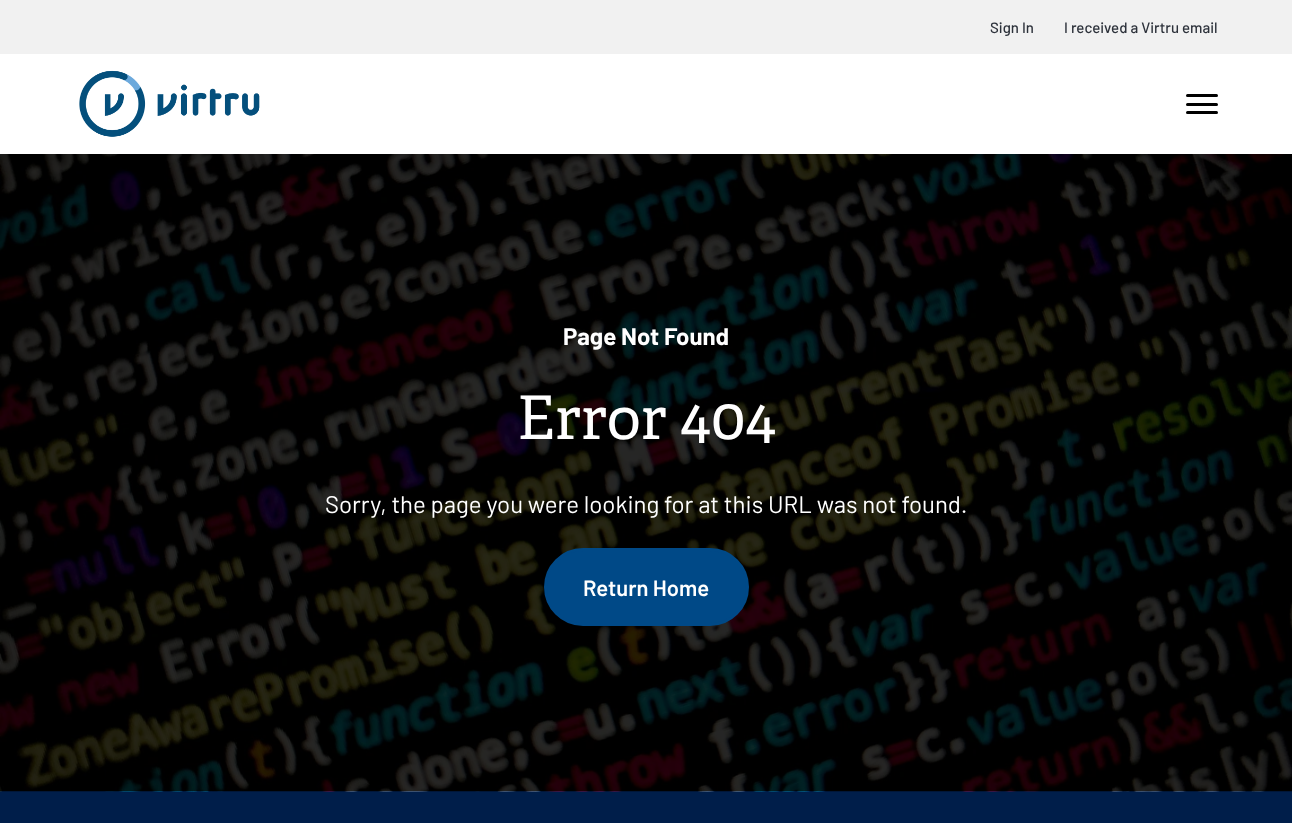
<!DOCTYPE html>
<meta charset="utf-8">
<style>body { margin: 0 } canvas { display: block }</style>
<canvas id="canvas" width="1292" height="823"></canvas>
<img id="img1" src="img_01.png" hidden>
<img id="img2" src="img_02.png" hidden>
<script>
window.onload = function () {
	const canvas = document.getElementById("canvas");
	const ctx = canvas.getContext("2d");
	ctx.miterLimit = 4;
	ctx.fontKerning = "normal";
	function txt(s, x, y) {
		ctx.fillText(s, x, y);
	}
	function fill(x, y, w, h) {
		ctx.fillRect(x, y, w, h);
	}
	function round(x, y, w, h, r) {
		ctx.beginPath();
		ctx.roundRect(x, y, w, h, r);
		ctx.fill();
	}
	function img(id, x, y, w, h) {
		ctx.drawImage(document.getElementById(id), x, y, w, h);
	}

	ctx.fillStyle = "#001E4A";
	fill(0, 0, 1292, 823);
	ctx.fillStyle = "#FFFFFF";
	fill(0, 54, 1292, 100);
	ctx.fillStyle = "#F1F1F1";
	fill(0, 0, 1292, 54);
	img("img1", 79, 70, 181, 67);
	ctx.fillStyle = "#000000";
	round(1186, 94, 32, 3, 1.5);
	round(1186, 103, 32, 3, 1.5);
	round(1186, 111, 32, 3, 1.5);
	img("img2", 0, 154, 1292, 638);
	ctx.fillStyle = "#004987";
	ctx.beginPath();
	ctx.roundRect(545.5, 549.5, 202, 75, 37.5);
	ctx.fill();
	ctx.strokeStyle = "#004987";
	ctx.lineWidth = 3;
	ctx.stroke();
	ctx.font = "500 15px Barlow";
	ctx.fillStyle = "#2D323B";
	txt("Sign In", 990, 33);
	txt("I received a Virtru email", 1064, 33);
	ctx.font = "bold 24px Barlow";
	ctx.fillStyle = "#FFFFFF";
	txt("Page Not Found", 563, 345);
	ctx.font = "60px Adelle";
	txt("Error 404", 517, 439);
	ctx.font = "24px Barlow";
	txt("Sorry, the page you were looking for at this URL was not found.", 325, 513);
	ctx.font = "600 22px Barlow";
	txt("Return Home", 583, 596);
};
</script>
